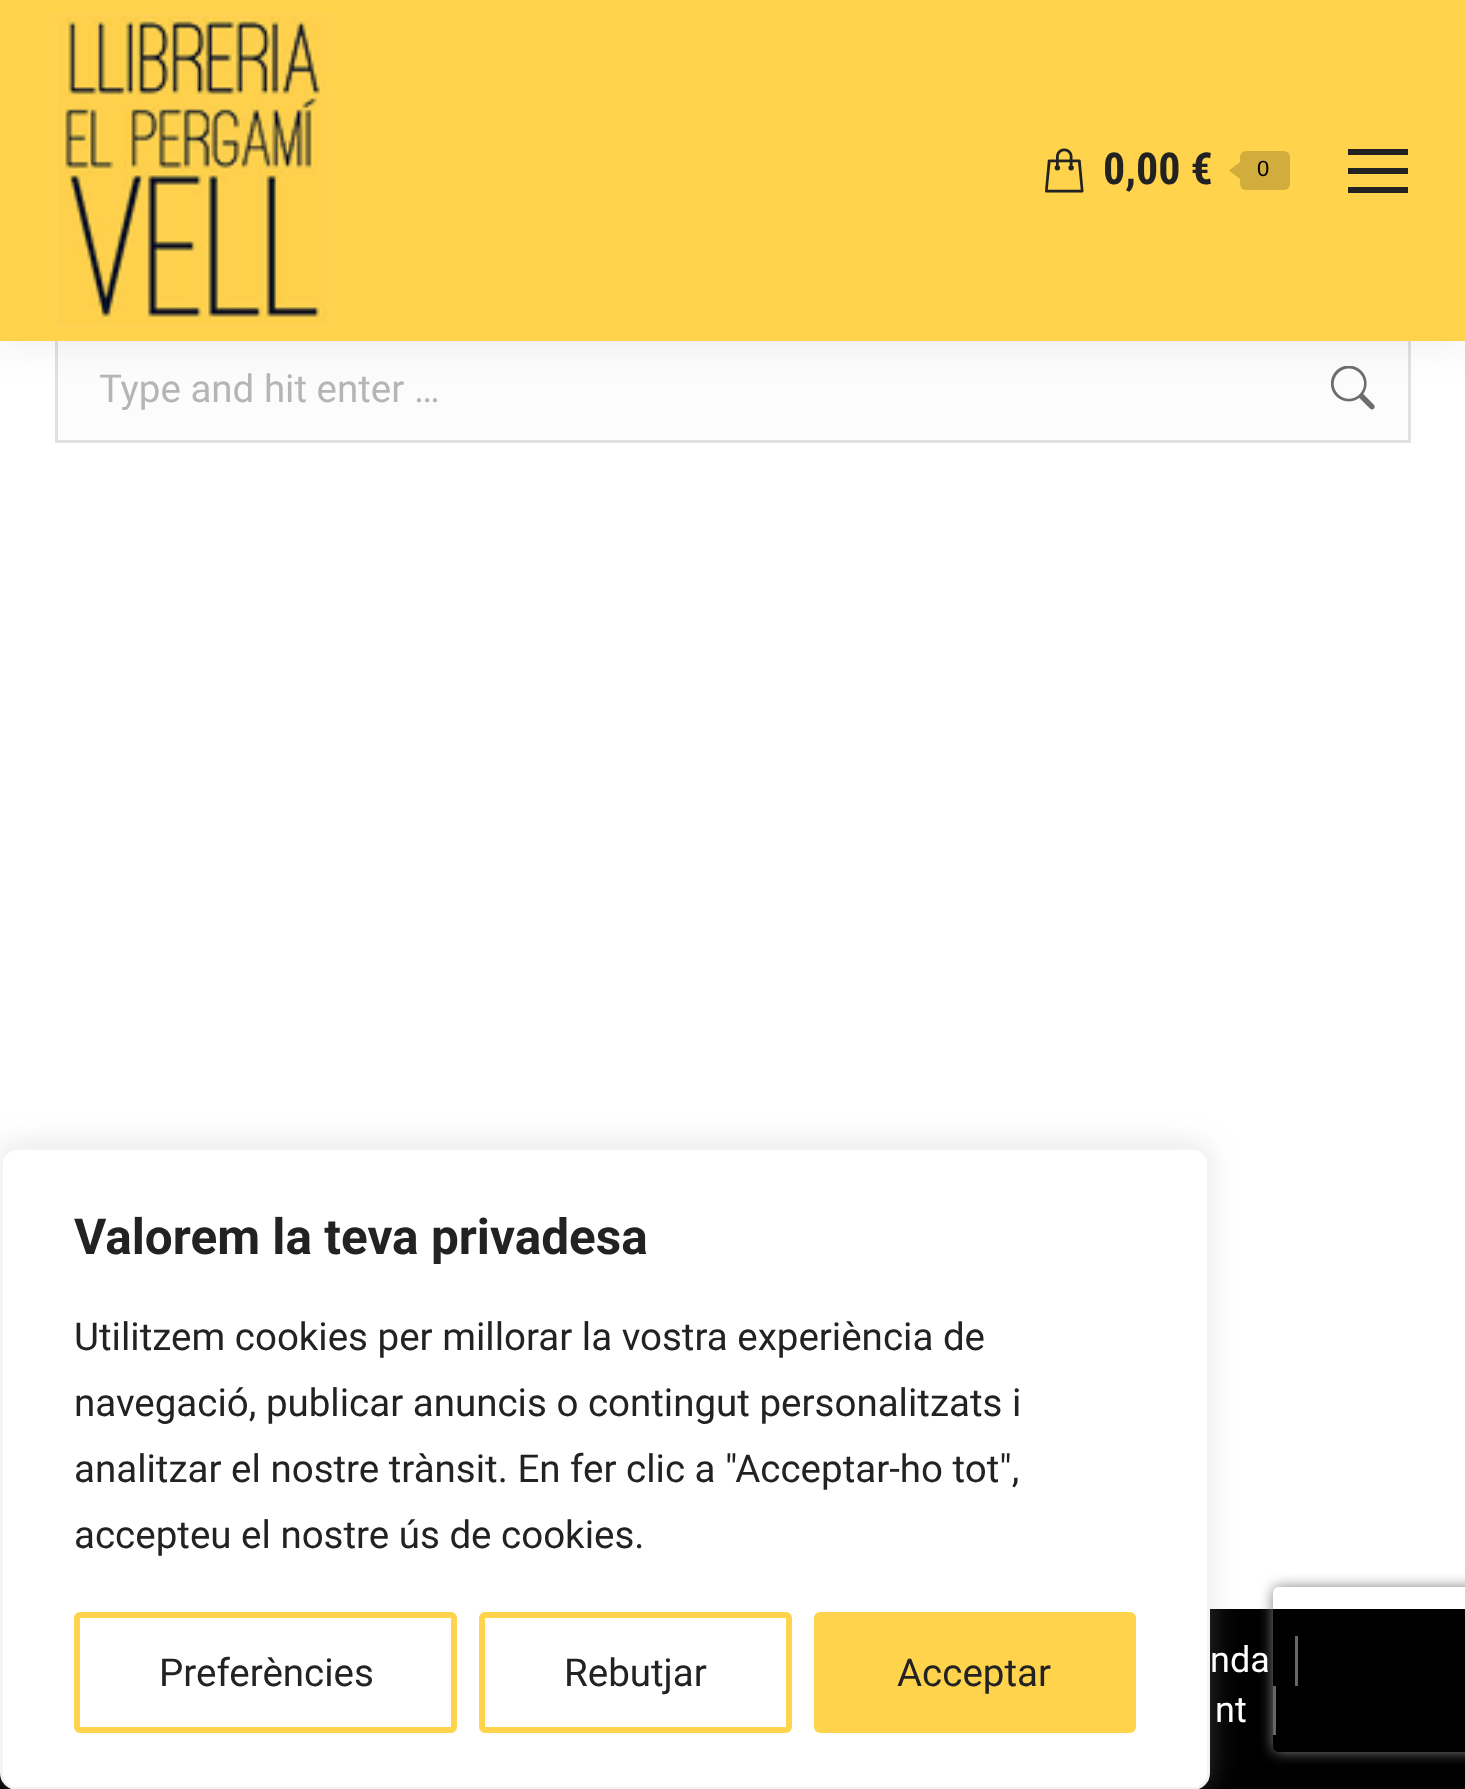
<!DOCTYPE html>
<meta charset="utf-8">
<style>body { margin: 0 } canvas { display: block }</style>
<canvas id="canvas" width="1465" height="1789"></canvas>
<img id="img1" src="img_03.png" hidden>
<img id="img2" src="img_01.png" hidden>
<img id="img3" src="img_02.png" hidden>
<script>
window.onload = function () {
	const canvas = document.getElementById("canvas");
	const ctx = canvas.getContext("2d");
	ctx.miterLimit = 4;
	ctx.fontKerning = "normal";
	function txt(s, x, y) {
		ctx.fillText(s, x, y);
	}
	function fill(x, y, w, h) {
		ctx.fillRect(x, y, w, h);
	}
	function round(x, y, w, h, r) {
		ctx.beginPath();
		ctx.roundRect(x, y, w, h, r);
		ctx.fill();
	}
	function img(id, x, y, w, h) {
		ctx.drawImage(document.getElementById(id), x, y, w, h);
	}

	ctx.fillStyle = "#000000";
	fill(0, 0, 1465, 1789);
	ctx.fillStyle = "#FFFFFF";
	fill(0, 341, 1465, 1268);
	ctx.fillStyle = "#FCFCFC";
	fill(58, 341, 1350, 99);
	ctx.strokeStyle = "#E1E1E1";
	ctx.lineWidth = 3;
	ctx.strokeRect(56.5, 334.5, 1353, 107);
	img("img1", 1331, 366, 44, 44);
	ctx.fillStyle = "rgba(0, 0, 0, 0.07)";
	ctx.filter = "blur(20.5px)";
	ctx.beginPath();
	ctx.rect(-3, -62, 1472, 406);
	ctx.fill();
	ctx.filter = "none";
	ctx.fillStyle = "#FFD34C";
	fill(0, 0, 1465, 341);
	img("img2", 55, 13, 275, 315);
	img("img3", 1045, 148, 39, 45);
	ctx.fillStyle = "#D1AD3E";
	round(1240, 151, 50, 39, 6);
	ctx.beginPath();
	ctx.moveTo(1240, 162);
	ctx.lineTo(1240, 179);
	ctx.lineTo(1229, 170.5);
	ctx.closePath();
	ctx.fill();
	ctx.fillStyle = "#222222";
	fill(1348, 149, 60, 6);
	fill(1348, 168, 60, 6);
	fill(1348, 187, 60, 6);
	ctx.fillStyle = "#666666";
	fill(1295, 1636, 3, 50);
	fill(1273, 1686, 3, 49);
	ctx.fillStyle = "rgba(172, 171, 171, 0.3)";
	ctx.filter = "blur(14px)";
	ctx.beginPath();
	ctx.roundRect(0, 1144, 1210, 644, 17);
	ctx.fill();
	ctx.filter = "none";
	ctx.fillStyle = "#FFFFFF";
	ctx.beginPath();
	ctx.roundRect(1.5, 1148.5, 1207, 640, 15.5);
	ctx.fill();
	ctx.strokeStyle = "#F4F4F4";
	ctx.stroke();
	ctx.beginPath();
	ctx.roundRect(77, 1615, 377, 115, 3);
	ctx.strokeStyle = "#FFD34C";
	ctx.lineWidth = 6;
	ctx.stroke();
	ctx.beginPath();
	ctx.roundRect(482, 1615, 307, 115, 3);
	ctx.stroke();
	ctx.fillStyle = "#FFD34C";
	ctx.beginPath();
	ctx.roundRect(817, 1615, 316, 115, 3);
	ctx.fill();
	ctx.stroke();
	ctx.save();
	ctx.beginPath();
	ctx.moveTo(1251, 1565);
	ctx.lineTo(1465, 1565);
	ctx.lineTo(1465, 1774);
	ctx.lineTo(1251, 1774);
	ctx.closePath();
	ctx.moveTo(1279, 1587);
	ctx.lineTo(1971, 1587);
	ctx.bezierCurveTo(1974.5, 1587, 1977, 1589.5, 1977, 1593);
	ctx.lineTo(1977, 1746);
	ctx.bezierCurveTo(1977, 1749.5, 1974.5, 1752, 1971, 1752);
	ctx.lineTo(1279, 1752);
	ctx.bezierCurveTo(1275.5, 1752, 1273, 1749.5, 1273, 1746);
	ctx.lineTo(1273, 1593);
	ctx.bezierCurveTo(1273, 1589.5, 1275.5, 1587, 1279, 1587);
	ctx.closePath();
	ctx.clip("evenodd");
	ctx.fillStyle = "#808080";
	ctx.filter = "blur(7px)";
	ctx.beginPath();
	ctx.roundRect(1273, 1587, 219, 165, 6);
	ctx.fill();
	ctx.filter = "none";
	ctx.restore();
	ctx.font = "bold 44px Roboto Condensed";
	ctx.fillStyle = "#222222";
	txt("0,00 €", 1103, 184);
	ctx.font = "22px Liberation Sans";
	ctx.fillStyle = "#000000";
	txt("0", 1257, 176);
	ctx.save();
	ctx.beginPath();
	ctx.rect(99, 366, 1227, 44);
	ctx.clip();
	ctx.font = "38.5px Roboto";
	ctx.fillStyle = "#B5B5B5";
	txt("Type and hit enter …", 99, 402);
	ctx.restore();
	ctx.font = "36px Roboto";
	ctx.fillStyle = "#FFFFFF";
	txt("nda", 1210, 1672);
	txt("nt", 1215, 1722);
	ctx.font = "bold 49.5px Roboto";
	ctx.fillStyle = "#222222";
	txt("Valorem la teva privadesa", 74, 1254);
	ctx.font = "38.5px Roboto";
	txt("Utilitzem cookies per millorar la vostra experiència de", 74, 1350);
	txt("navegació, publicar anuncis o contingut personalitzats i", 74, 1416);
	txt("analitzar el nostre trànsit. En fer clic a \"Acceptar-ho tot\",", 74, 1482);
	txt("accepteu el nostre ús de cookies.", 74, 1548);
	txt("Preferències", 159, 1686);
	txt("Rebutjar", 564, 1686);
	txt("Acceptar", 897, 1686);
};
</script>
